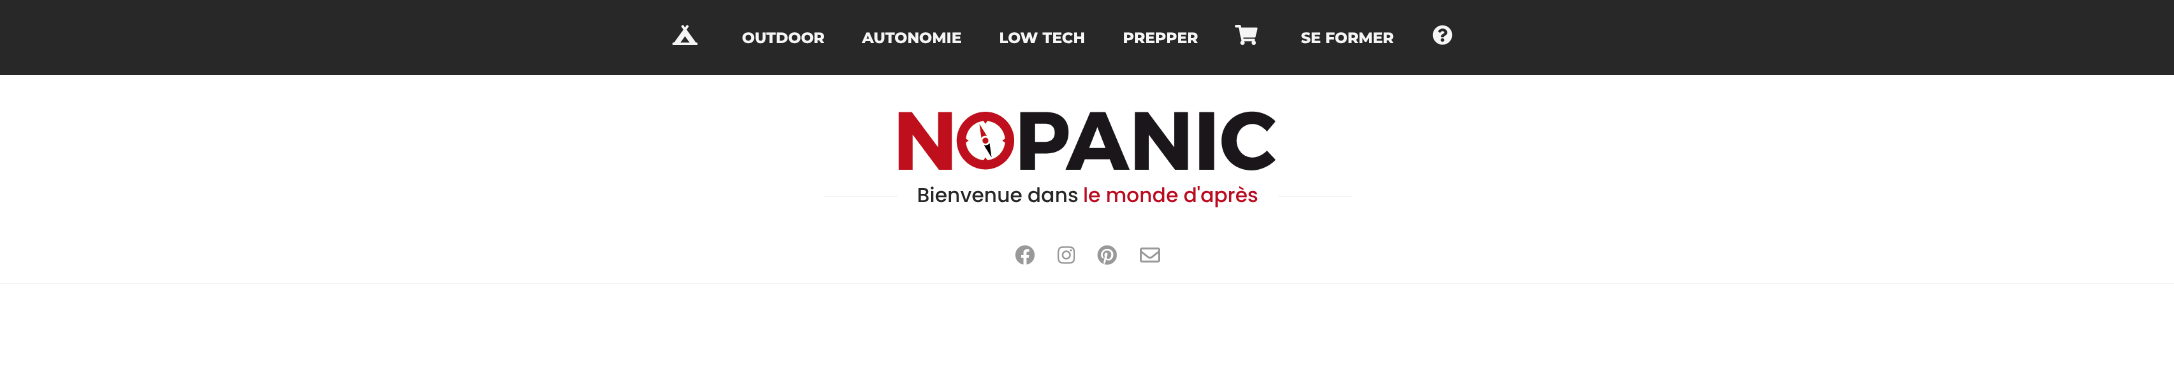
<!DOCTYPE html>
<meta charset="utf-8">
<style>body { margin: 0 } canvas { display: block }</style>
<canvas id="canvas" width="2174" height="384"></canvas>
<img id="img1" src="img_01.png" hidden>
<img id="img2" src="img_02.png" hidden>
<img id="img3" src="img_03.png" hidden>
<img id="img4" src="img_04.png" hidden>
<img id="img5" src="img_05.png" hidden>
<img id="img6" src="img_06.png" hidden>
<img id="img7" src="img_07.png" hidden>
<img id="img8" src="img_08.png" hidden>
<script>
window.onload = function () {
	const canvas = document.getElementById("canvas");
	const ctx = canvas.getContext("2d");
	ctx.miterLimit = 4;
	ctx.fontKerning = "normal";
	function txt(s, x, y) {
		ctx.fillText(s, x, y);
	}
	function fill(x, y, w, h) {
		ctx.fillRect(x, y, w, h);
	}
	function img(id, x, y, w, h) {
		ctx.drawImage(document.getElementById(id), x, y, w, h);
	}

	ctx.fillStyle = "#FFFFFF";
	fill(0, 0, 2174, 384);
	ctx.fillStyle = "#282828";
	fill(0, 0, 2174, 75);
	img("img1", 672, 25, 26, 20);
	img("img2", 1235, 25, 23, 20);
	img("img3", 1432, 25, 21, 20);
	ctx.fillStyle = "#F5F5F5";
	fill(0, 283, 2174, 1);
	img("img4", 898, 111, 378, 60);
	fill(823, 196, 75, 1);
	fill(1278, 196, 75, 1);
	img("img5", 1015, 245, 20, 20);
	img("img6", 1057, 246, 18, 18);
	img("img7", 1097, 245, 20, 20);
	img("img8", 1140, 247, 20, 16);
	ctx.font = "800 15px Montserrat";
	txt("OUTDOOR", 742, 43);
	txt("AUTONOMIE", 862, 43);
	txt("LOW TECH", 999, 43);
	txt("PREPPER", 1123, 43);
	txt("SE FORMER", 1301, 43);
	ctx.font = "500 20px Poppins";
	ctx.fillStyle = "#282828";
	txt("Bienvenue dans", 917, 202);
	ctx.fillStyle = "#BB0D21";
	txt("le monde d'après", 1083, 202);
};
</script>
